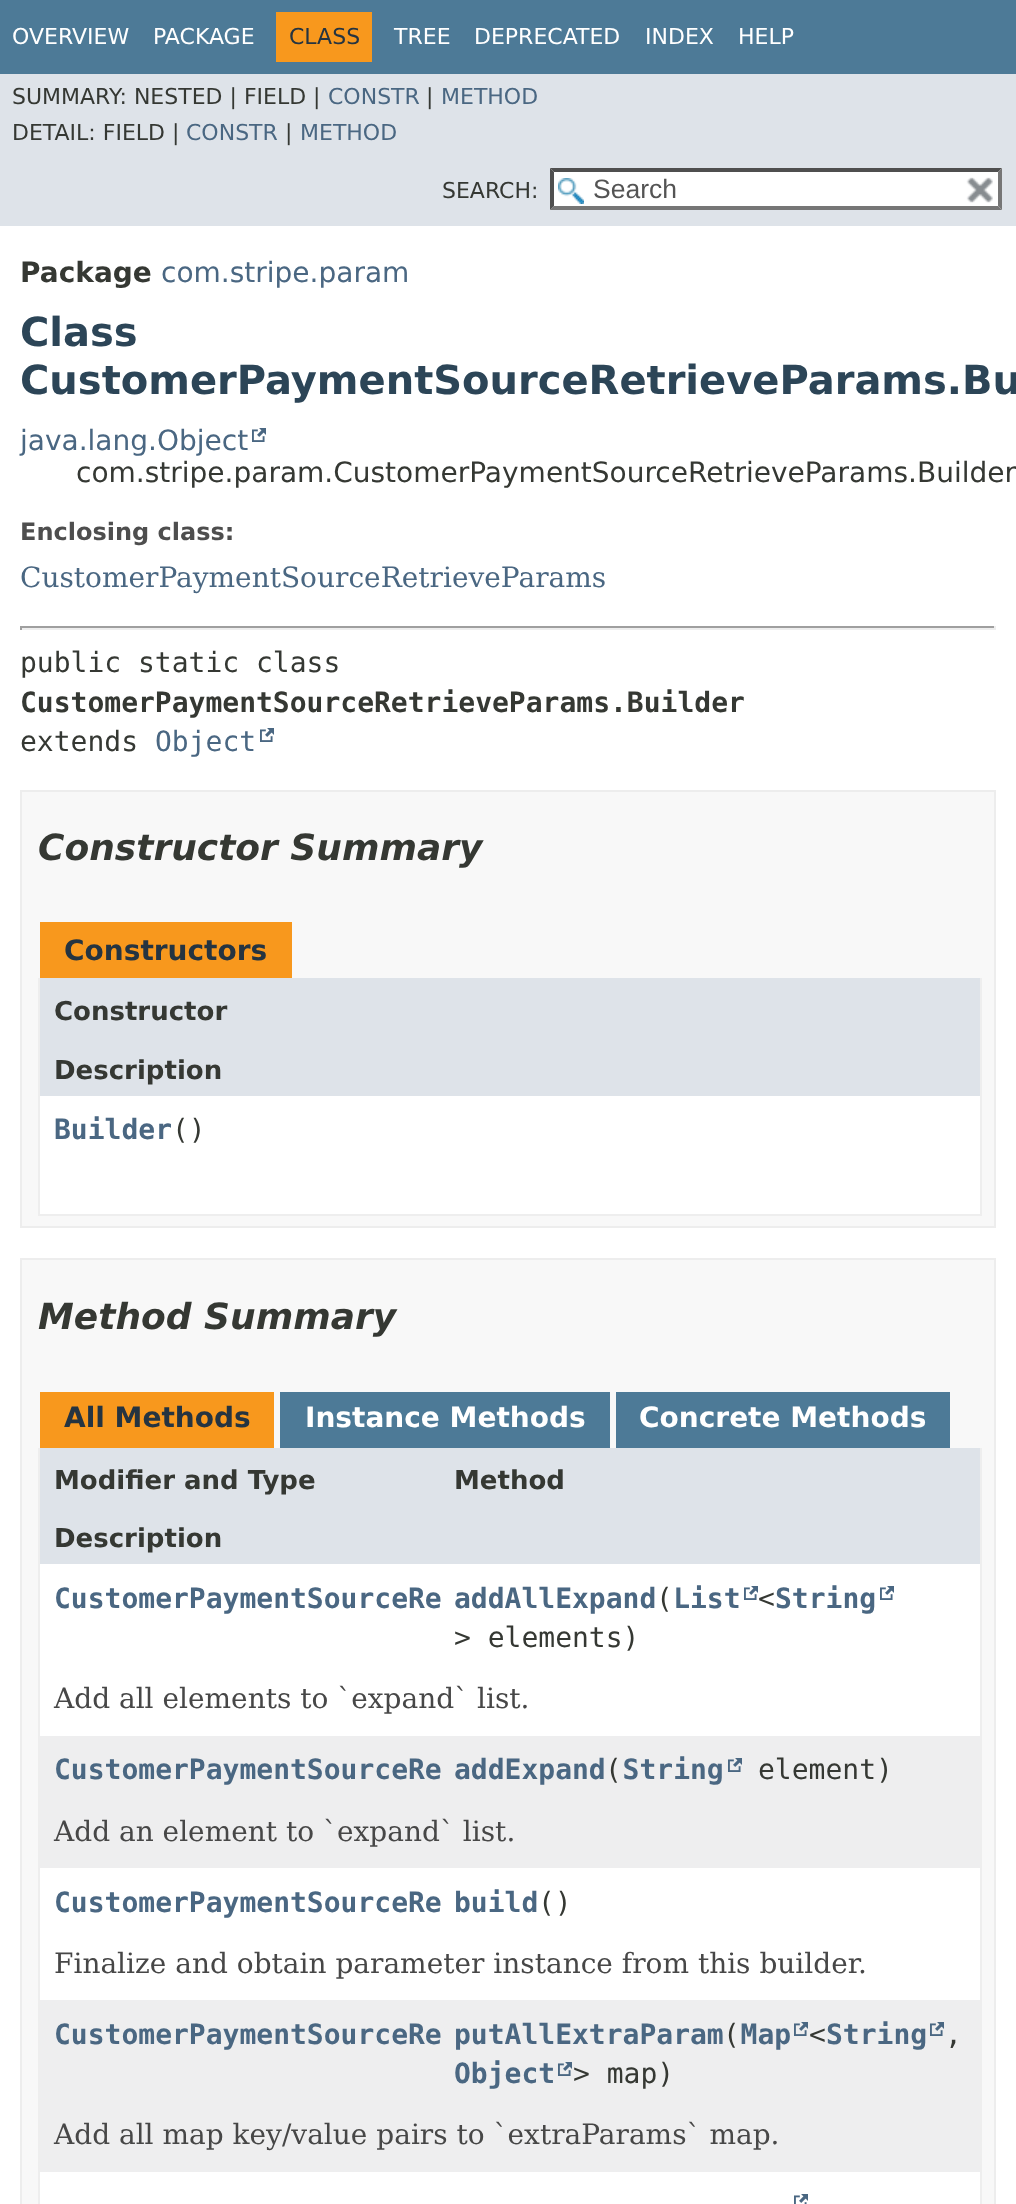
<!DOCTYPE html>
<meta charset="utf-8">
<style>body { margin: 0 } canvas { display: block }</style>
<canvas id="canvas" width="1016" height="2204"></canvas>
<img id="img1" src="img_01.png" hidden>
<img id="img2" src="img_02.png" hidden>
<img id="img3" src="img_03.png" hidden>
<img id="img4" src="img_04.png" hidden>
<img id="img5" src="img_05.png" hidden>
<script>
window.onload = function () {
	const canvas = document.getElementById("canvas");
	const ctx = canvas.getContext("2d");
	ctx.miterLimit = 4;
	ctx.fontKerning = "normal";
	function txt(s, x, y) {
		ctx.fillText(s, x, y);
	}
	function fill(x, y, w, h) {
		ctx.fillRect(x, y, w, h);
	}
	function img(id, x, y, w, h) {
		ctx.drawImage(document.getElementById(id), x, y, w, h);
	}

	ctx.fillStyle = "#FFFFFF";
	fill(0, 0, 1016, 2204);
	ctx.fillStyle = "#4D7A97";
	fill(0, 0, 1016, 74);
	ctx.fillStyle = "#F8981D";
	fill(276, 12, 96, 50);
	ctx.fillStyle = "#DEE3E9";
	fill(0, 74, 1016, 152);
	ctx.fillStyle = "#FFFFFF";
	fill(550, 168, 452, 42);
	img("img1", 558, 178, 26, 26);
	ctx.fillStyle = "#4F4F4F";
	ctx.beginPath();
	ctx.moveTo(550, 168);
	ctx.lineTo(1002, 168);
	ctx.lineTo(998, 172);
	ctx.lineTo(554, 172);
	ctx.closePath();
	ctx.fill();
	ctx.fillStyle = "#767676";
	ctx.beginPath();
	ctx.moveTo(1002, 168);
	ctx.lineTo(1002, 210);
	ctx.lineTo(998, 206);
	ctx.lineTo(998, 172);
	ctx.closePath();
	ctx.fill();
	ctx.beginPath();
	ctx.moveTo(1002, 210);
	ctx.lineTo(550, 210);
	ctx.lineTo(554, 206);
	ctx.lineTo(998, 206);
	ctx.closePath();
	ctx.fill();
	ctx.fillStyle = "#4F4F4F";
	ctx.beginPath();
	ctx.moveTo(550, 210);
	ctx.lineTo(550, 168);
	ctx.lineTo(554, 172);
	ctx.lineTo(554, 206);
	ctx.closePath();
	ctx.fill();
	img("img2", 966, 177, 27, 26);
	img("img3", 252, 428, 14, 14);
	ctx.fillStyle = "#9F9F9F";
	fill(20, 626, 976, 2);
	ctx.fillStyle = "#EEEEEE";
	fill(994, 626, 2, 4);
	fill(20, 628, 976, 2);
	ctx.fillStyle = "#9F9F9F";
	fill(20, 626, 2, 4);
	img("img3", 260, 728, 14, 14);
	ctx.fillStyle = "#F8F8F8";
	ctx.beginPath();
	ctx.rect(21, 791, 974, 436);
	ctx.fill();
	ctx.strokeStyle = "#EDEDED";
	ctx.lineWidth = 2;
	ctx.stroke();
	ctx.fillStyle = "#F8981D";
	fill(40, 922, 252, 56);
	ctx.fillStyle = "#EEEEEE";
	fill(980, 978, 2, 238);
	fill(38, 1214, 944, 2);
	fill(38, 978, 2, 238);
	ctx.fillStyle = "#DEE3E9";
	fill(40, 978, 940, 118);
	ctx.fillStyle = "#FFFFFF";
	fill(40, 1096, 940, 118);
	ctx.fillStyle = "#F8F8F8";
	ctx.beginPath();
	ctx.rect(21, 1259, 974, 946);
	ctx.fill();
	ctx.stroke();
	ctx.fillStyle = "#F8981D";
	fill(40, 1392, 234, 56);
	ctx.fillStyle = "#4D7A97";
	fill(280, 1392, 330, 56);
	fill(616, 1392, 334, 56);
	ctx.fillStyle = "#EEEEEE";
	fill(980, 1448, 2, 756);
	fill(38, 1448, 2, 756);
	ctx.fillStyle = "#DEE3E9";
	fill(40, 1448, 940, 58);
	fill(40, 1506, 940, 58);
	ctx.fillStyle = "#FFFFFF";
	fill(40, 1564, 940, 100);
	img("img3", 880, 1586, 14, 14);
	img("img3", 744, 1586, 14, 14);
	fill(40, 1664, 940, 72);
	ctx.fillStyle = "#EEEEEF";
	fill(40, 1736, 940, 60);
	img("img4", 728, 1758, 14, 14);
	fill(40, 1796, 940, 72);
	ctx.fillStyle = "#FFFFFF";
	fill(40, 1868, 940, 60);
	fill(40, 1928, 940, 72);
	ctx.fillStyle = "#EEEEEF";
	fill(40, 2000, 940, 100);
	img("img4", 930, 2022, 14, 14);
	img("img4", 794, 2022, 14, 14);
	img("img4", 558, 2062, 14, 14);
	fill(40, 2100, 940, 72);
	ctx.fillStyle = "#FFFFFF";
	fill(40, 2172, 940, 32);
	img("img5", 794, 2194, 14, 10);
	ctx.font = "22px DejaVu Sans";
	txt("OVERVIEW", 12, 44);
	txt("PACKAGE", 153, 44);
	ctx.fillStyle = "#253441";
	txt("CLASS", 289, 44);
	ctx.fillStyle = "#FFFFFF";
	txt("TREE", 394, 44);
	txt("DEPRECATED", 474, 44);
	txt("INDEX", 645, 44);
	txt("HELP", 738, 44);
	ctx.fillStyle = "#353833";
	txt("SUMMARY: NESTED | FIELD |", 12, 104);
	ctx.fillStyle = "#4A6782";
	txt("CONSTR", 328, 104);
	ctx.fillStyle = "#353833";
	txt("|", 426, 104);
	ctx.fillStyle = "#4A6782";
	txt("METHOD", 441, 104);
	ctx.fillStyle = "#353833";
	txt("DETAIL: FIELD |", 12, 140);
	ctx.fillStyle = "#4A6782";
	txt("CONSTR", 186, 140);
	ctx.fillStyle = "#353833";
	txt("|", 285, 140);
	ctx.fillStyle = "#4A6782";
	txt("METHOD", 300, 140);
	ctx.fillStyle = "#353833";
	txt("SEARCH:", 442, 198);
	ctx.font = "26.5px Liberation Sans";
	ctx.fillStyle = "#545454";
	txt("Search", 593, 198);
	ctx.font = "bold 28px DejaVu Sans";
	ctx.fillStyle = "#353833";
	txt("Package", 20, 282);
	ctx.font = "28px DejaVu Sans";
	ctx.fillStyle = "#4A6782";
	txt("com.stripe.param", 161, 282);
	ctx.font = "bold 40px DejaVu Sans";
	ctx.fillStyle = "#2C4557";
	txt("Class", 20, 346);
	txt("CustomerPaymentSourceRetrieveParams.Bu", 20, 394);
	ctx.font = "28px DejaVu Sans";
	ctx.fillStyle = "#4A6782";
	txt("java.lang.Object", 20, 450);
	ctx.fillStyle = "#353833";
	txt("com.stripe.param.CustomerPaymentSourceRetrieveParams.Builder", 76, 482);
	ctx.font = "bold 24px DejaVu Sans";
	ctx.fillStyle = "#4E4E4E";
	txt("Enclosing class:", 20, 540);
	ctx.font = "28px DejaVu Serif";
	ctx.fillStyle = "#4A6782";
	txt("CustomerPaymentSourceRetrieveParams", 20, 587);
	ctx.font = "28px DejaVu Sans Mono";
	ctx.fillStyle = "#353833";
	txt("public static class", 20, 672);
	ctx.font = "bold 28px DejaVu Sans Mono";
	txt("CustomerPaymentSourceRetrieveParams.Builder", 20, 712);
	ctx.font = "28px DejaVu Sans Mono";
	txt("extends", 20, 751);
	ctx.fillStyle = "#4A6782";
	txt("Object", 155, 751);
	ctx.font = "italic bold 36px DejaVu Sans";
	ctx.fillStyle = "#353833";
	txt("Constructor Summary", 38, 860);
	ctx.font = "bold 28px DejaVu Sans";
	ctx.fillStyle = "#253441";
	txt("Constructors", 64, 960);
	ctx.font = "bold 26px DejaVu Sans";
	ctx.fillStyle = "#353833";
	txt("Constructor", 54, 1020);
	txt("Description", 54, 1079);
	ctx.font = "bold 28px DejaVu Sans Mono";
	ctx.fillStyle = "#4A6782";
	txt("Builder", 54, 1139);
	ctx.font = "28px DejaVu Sans Mono";
	ctx.fillStyle = "#353833";
	txt("()", 172, 1139);
	ctx.font = "italic bold 36px DejaVu Sans";
	txt("Method Summary", 38, 1329);
	ctx.font = "bold 28px DejaVu Sans";
	ctx.fillStyle = "#253441";
	txt("All Methods", 64, 1427);
	ctx.fillStyle = "#FFFFFF";
	txt("Instance Methods", 305, 1427);
	txt("Concrete Methods", 639, 1427);
	ctx.font = "bold 26px DejaVu Sans";
	ctx.fillStyle = "#353833";
	txt("Modifier and Type", 54, 1489);
	txt("Method", 454, 1489);
	txt("Description", 54, 1547);
	ctx.font = "bold 28px DejaVu Sans Mono";
	ctx.fillStyle = "#4A6782";
	txt("CustomerPaymentSourceRe", 54, 1608);
	txt("addAllExpand List", 454, 1608);
	txt("String", 775, 1608);
	ctx.font = "28px DejaVu Sans Mono";
	ctx.fillStyle = "#353833";
	txt("(", 656, 1608);
	txt("<", 758, 1608);
	txt("> elements)", 454, 1647);
	ctx.font = "28px DejaVu Serif";
	ctx.fillStyle = "#474747";
	txt("Add all elements to `expand` list.", 54, 1708);
	ctx.font = "bold 28px DejaVu Sans Mono";
	ctx.fillStyle = "#4A6782";
	txt("CustomerPaymentSourceRe", 54, 1779);
	txt("addExpand String", 454, 1779);
	ctx.font = "28px DejaVu Sans Mono";
	ctx.fillStyle = "#353833";
	txt("(", 605, 1779);
	txt("element)", 758, 1779);
	ctx.font = "28px DejaVu Serif";
	ctx.fillStyle = "#474747";
	txt("Add an element to `expand` list.", 54, 1841);
	ctx.font = "bold 28px DejaVu Sans Mono";
	ctx.fillStyle = "#4A6782";
	txt("CustomerPaymentSourceRe", 54, 1912);
	txt("build", 454, 1912);
	ctx.font = "28px DejaVu Sans Mono";
	ctx.fillStyle = "#353833";
	txt("()", 538, 1912);
	ctx.font = "28px DejaVu Serif";
	ctx.fillStyle = "#474747";
	txt("Finalize and obtain parameter instance from this builder.", 54, 1973);
	ctx.font = "bold 28px DejaVu Sans Mono";
	ctx.fillStyle = "#4A6782";
	txt("CustomerPaymentSourceRe", 54, 2044);
	txt("putAllExtraParam Map", 454, 2044);
	txt("String", 826, 2044);
	ctx.font = "28px DejaVu Sans Mono";
	ctx.fillStyle = "#353833";
	txt("(", 723, 2044);
	txt("<", 809, 2044);
	txt(",", 945, 2044);
	ctx.font = "bold 28px DejaVu Sans Mono";
	ctx.fillStyle = "#4A6782";
	txt("Object", 454, 2083);
	ctx.font = "28px DejaVu Sans Mono";
	ctx.fillStyle = "#353833";
	txt("> map)", 573, 2083);
	ctx.font = "28px DejaVu Serif";
	ctx.fillStyle = "#474747";
	txt("Add all map key/value pairs to `extraParams` map.", 54, 2144);
};
</script>
